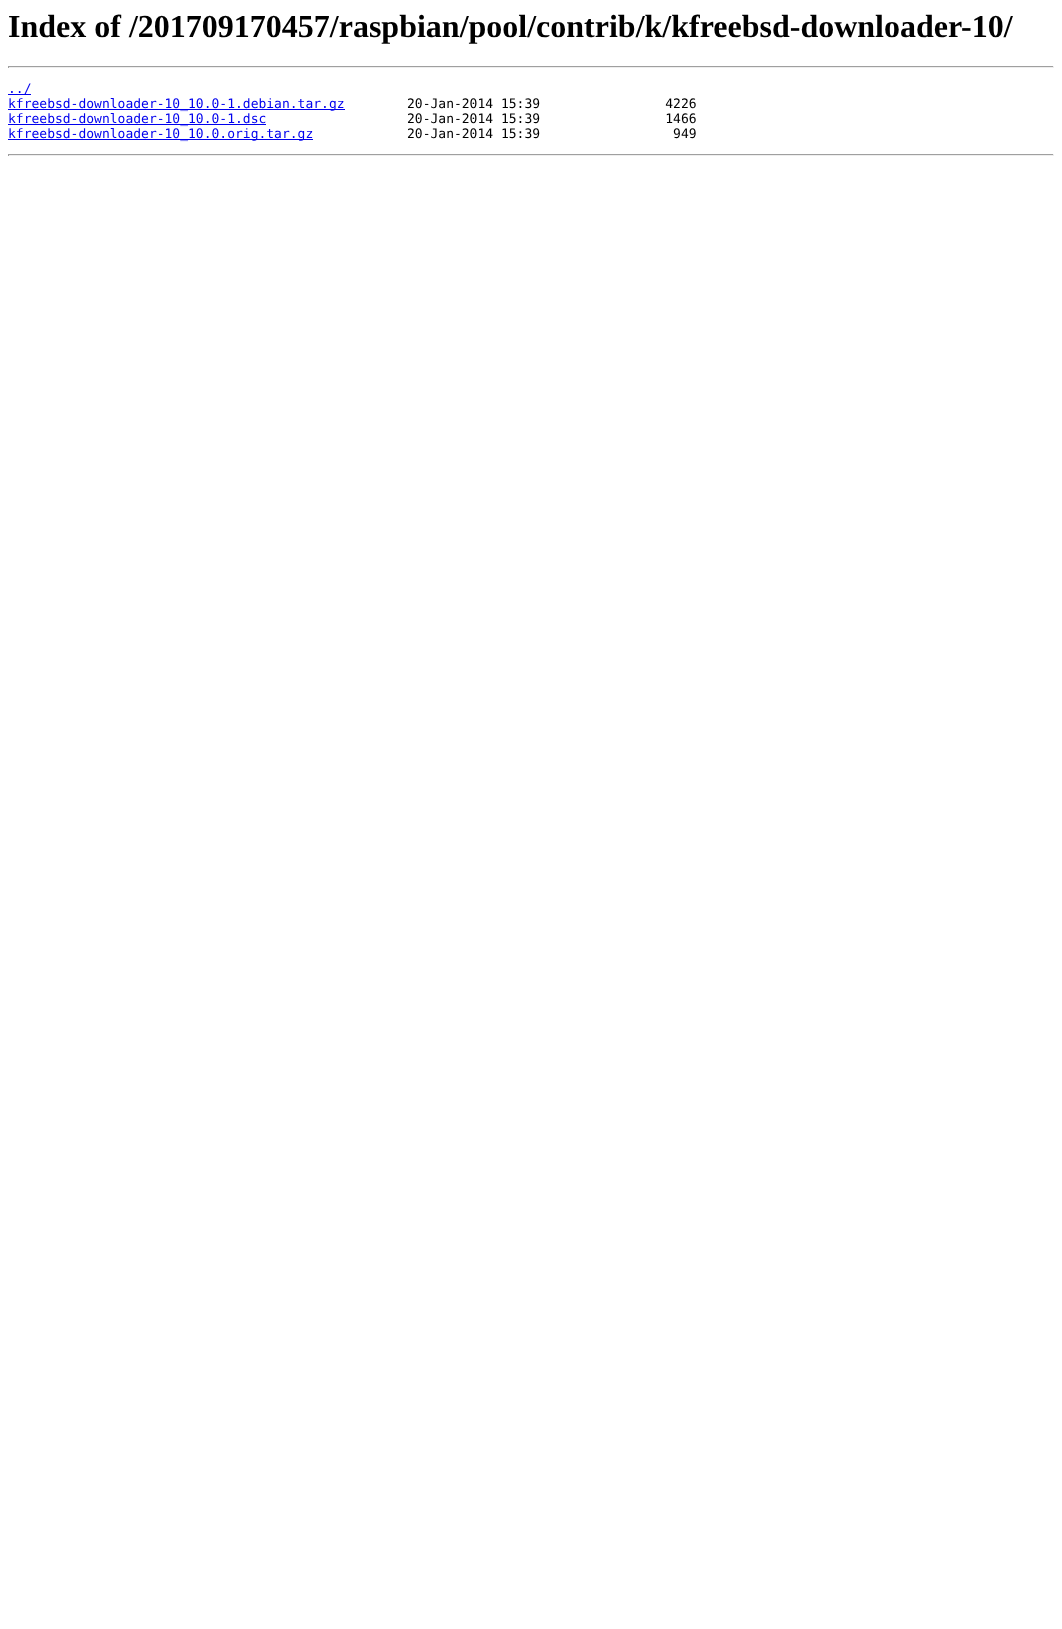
<!DOCTYPE html>
<meta charset="utf-8">
<style>body { margin: 0 } canvas { display: block }</style>
<canvas id="canvas" width="1062" height="1629"></canvas>
<script>
window.onload = function () {
	const canvas = document.getElementById("canvas");
	const ctx = canvas.getContext("2d");
	ctx.miterLimit = 4;
	ctx.fontKerning = "normal";
	function txt(s, x, y) {
		ctx.fillText(s, x, y);
	}
	function fill(x, y, w, h) {
		ctx.fillRect(x, y, w, h);
	}

	ctx.fillStyle = "#FFFFFF";
	fill(0, 0, 1062, 1629);
	ctx.fillStyle = "#9F9F9F";
	fill(8, 66, 1046, 1);
	ctx.fillStyle = "#EEEEEE";
	fill(1053, 66, 1, 2);
	fill(8, 67, 1046, 1);
	ctx.fillStyle = "#9F9F9F";
	fill(8, 66, 1, 2);
	ctx.fillStyle = "#0000EE";
	fill(8, 94, 23, 1);
	fill(8, 109, 337, 1);
	fill(8, 124, 258, 1);
	fill(8, 139, 305, 1);
	ctx.fillStyle = "#9F9F9F";
	fill(8, 154, 1046, 1);
	ctx.fillStyle = "#EEEEEE";
	fill(1053, 154, 1, 2);
	fill(8, 155, 1046, 1);
	ctx.fillStyle = "#9F9F9F";
	fill(8, 154, 1, 2);
	ctx.font = "bold 32px Liberation Serif";
	ctx.fillStyle = "#000000";
	txt("Index of /201709170457/raspbian/pool/contrib/k/kfreebsd-downloader-10/", 8, 37);
	ctx.font = "13px DejaVu Sans Mono";
	ctx.fillStyle = "#0000EE";
	txt("../", 8, 93);
	txt("kfreebsd-downloader-10_10.0-1.debian.tar.gz", 8, 108);
	ctx.fillStyle = "#000000";
	txt("20-Jan-2014 15:39                4226", 407, 108);
	ctx.fillStyle = "#0000EE";
	txt("kfreebsd-downloader-10_10.0-1.dsc", 8, 123);
	ctx.fillStyle = "#000000";
	txt("20-Jan-2014 15:39                1466", 407, 123);
	ctx.fillStyle = "#0000EE";
	txt("kfreebsd-downloader-10_10.0.orig.tar.gz", 8, 138);
	ctx.fillStyle = "#000000";
	txt("20-Jan-2014 15:39                 949", 407, 138);
};
</script>
